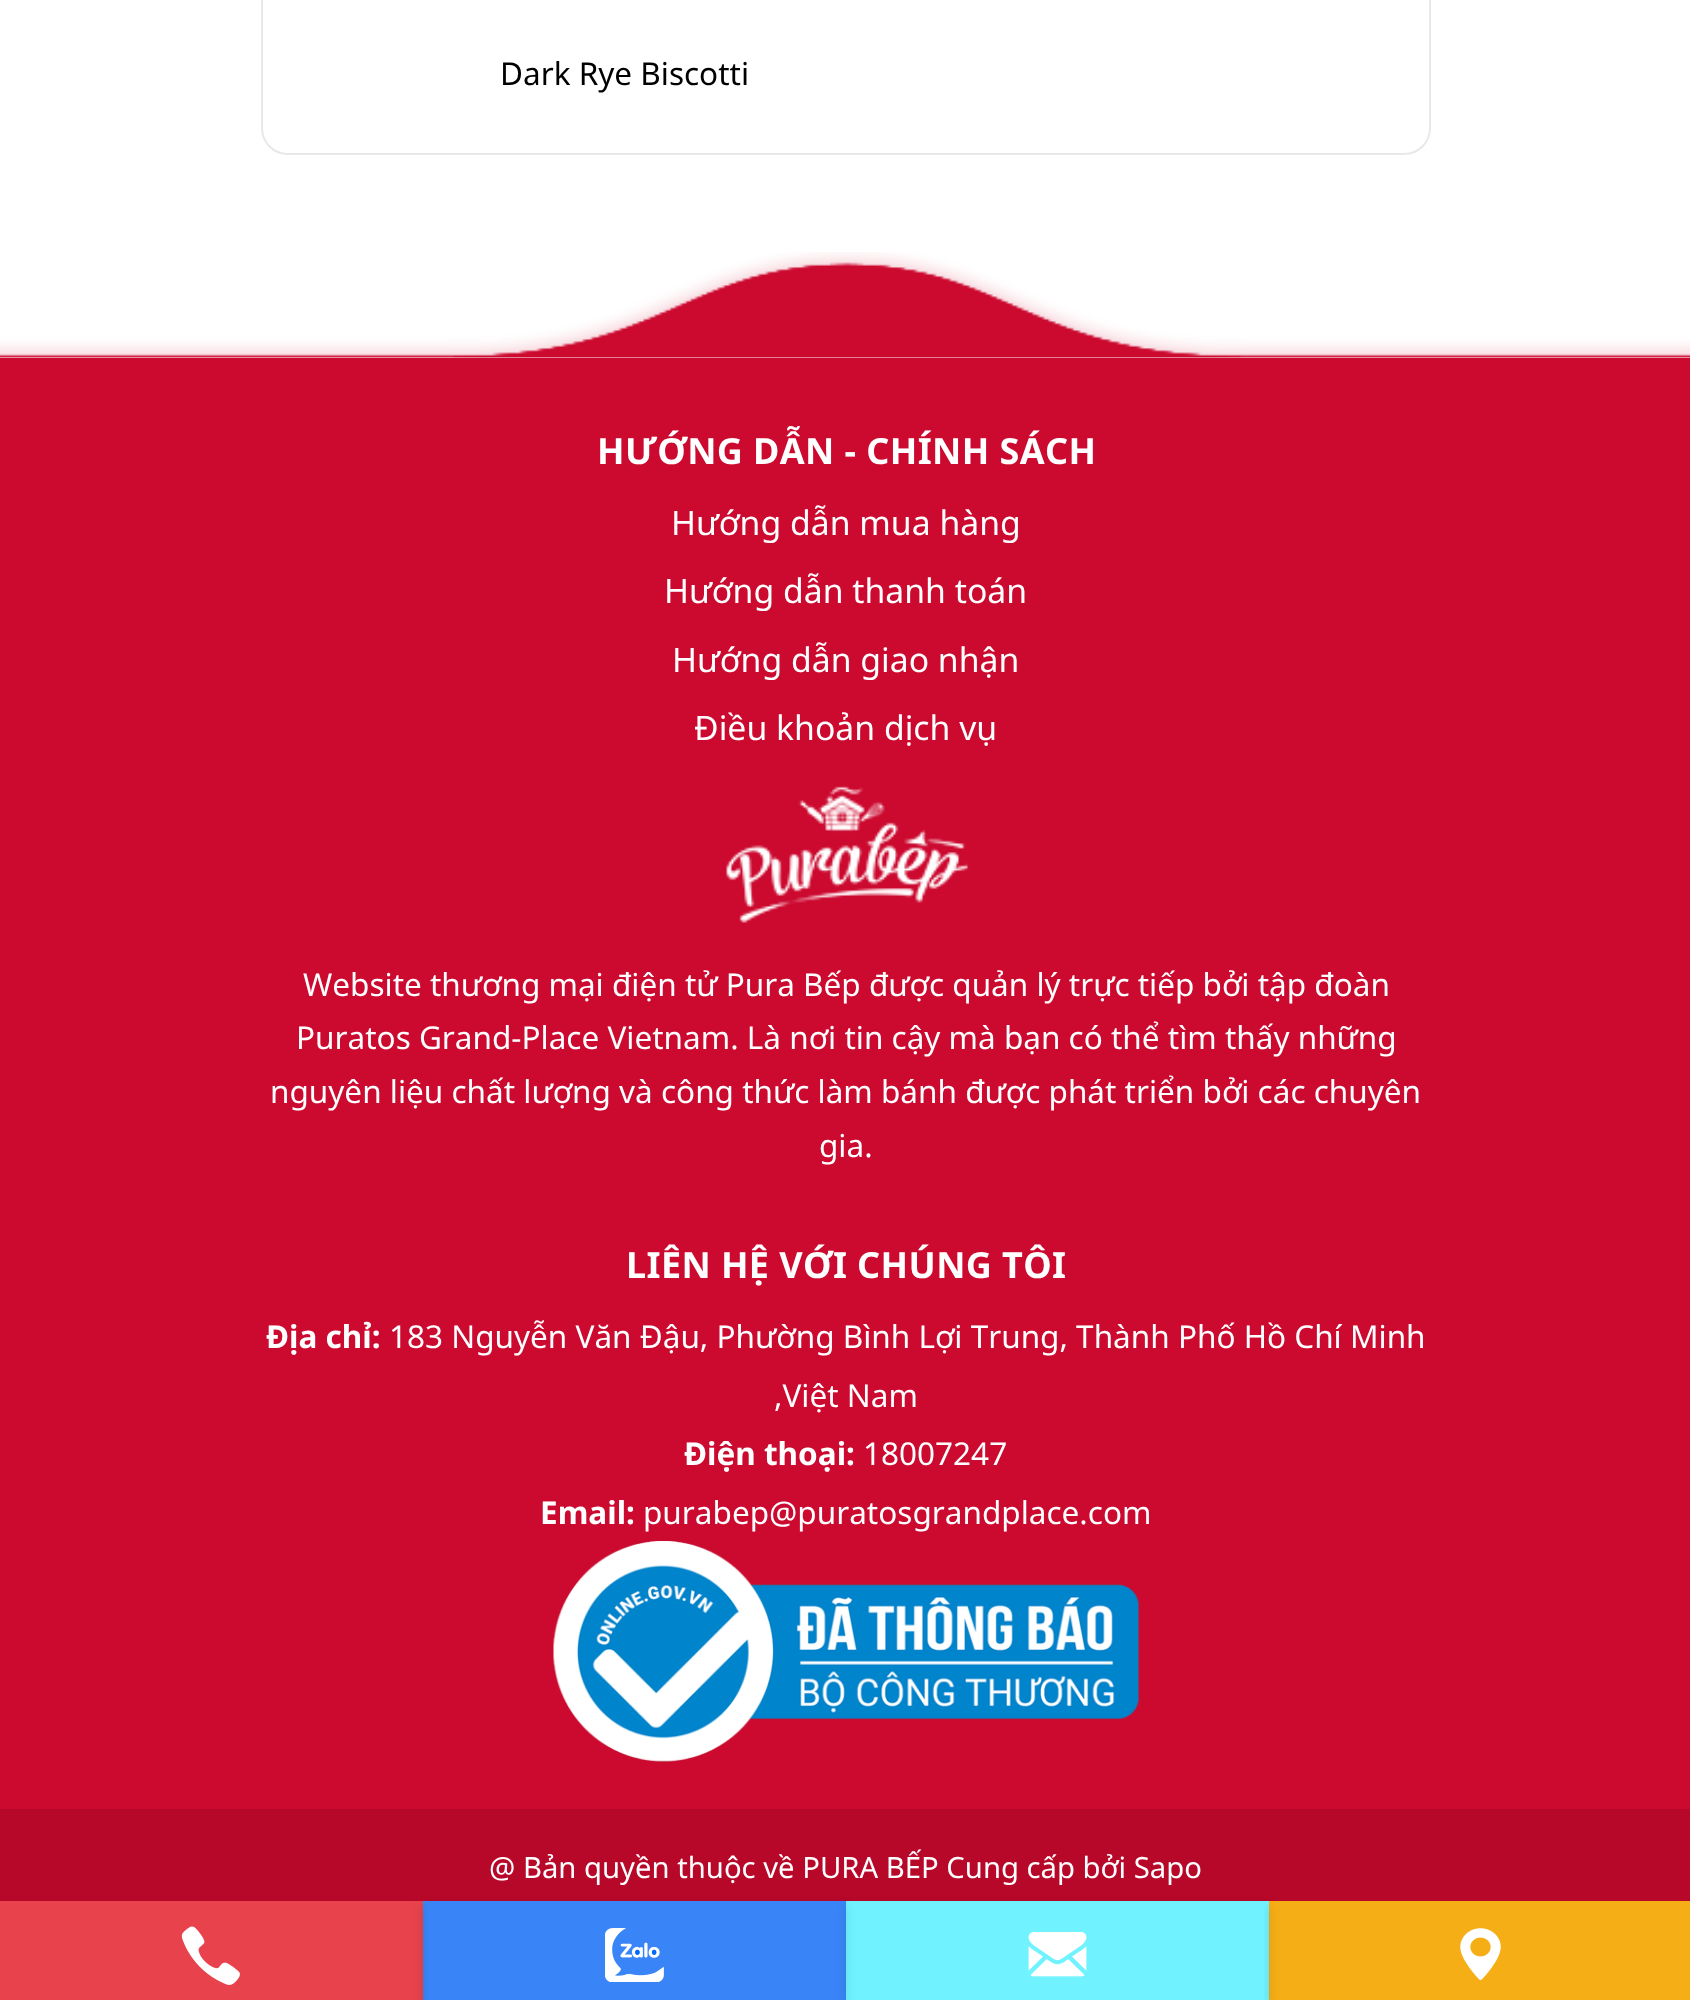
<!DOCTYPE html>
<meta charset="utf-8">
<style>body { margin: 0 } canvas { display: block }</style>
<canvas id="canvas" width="1690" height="2000"></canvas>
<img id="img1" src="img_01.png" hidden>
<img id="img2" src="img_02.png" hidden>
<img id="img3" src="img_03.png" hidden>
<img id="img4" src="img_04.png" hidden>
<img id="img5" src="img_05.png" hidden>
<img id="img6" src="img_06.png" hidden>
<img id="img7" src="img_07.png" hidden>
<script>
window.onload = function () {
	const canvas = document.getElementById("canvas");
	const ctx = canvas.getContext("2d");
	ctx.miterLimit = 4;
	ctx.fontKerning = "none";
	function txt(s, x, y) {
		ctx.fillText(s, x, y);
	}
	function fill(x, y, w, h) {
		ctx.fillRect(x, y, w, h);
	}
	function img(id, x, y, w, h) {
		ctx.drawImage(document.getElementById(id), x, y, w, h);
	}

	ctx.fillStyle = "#FFFFFF";
	fill(0, 0, 1690, 2000);
	ctx.beginPath();
	ctx.moveTo(262, -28);
	ctx.lineTo(1430, -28);
	ctx.lineTo(1430, 128);
	ctx.bezierCurveTo(1430, 142.5, 1418.5, 154, 1404, 154);
	ctx.lineTo(288, 154);
	ctx.bezierCurveTo(273.5, 154, 262, 142.5, 262, 128);
	ctx.closePath();
	ctx.strokeStyle = "#E8E8E8";
	ctx.lineWidth = 2;
	ctx.stroke();
	ctx.fillStyle = "#CC092F";
	fill(0, 358, 1690, 1451);
	img("img1", 0, 252, 1690, 106);
	img("img2", 726, 786, 243, 137);
	img("img3", 553, 1541, 586, 221);
	ctx.fillStyle = "#B8082A";
	fill(0, 1809, 1690, 92);
	ctx.fillStyle = "#E8434C";
	fill(0, 1901, 423, 99);
	ctx.fillStyle = "#3985F7";
	fill(423, 1901, 423, 99);
	ctx.save();
	ctx.beginPath();
	ctx.rect(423, 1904, 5, 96);
	ctx.clip();
	ctx.fillStyle = "rgba(0, 0, 0, 0.11)";
	ctx.filter = "blur(5.5px)";
	ctx.beginPath();
	ctx.rect(0, 1906, 423, 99);
	ctx.fill();
	ctx.filter = "none";
	ctx.restore();
	img("img4", 181, 1926, 59, 59);
	ctx.fillStyle = "#70F3FF";
	fill(846, 1901, 423, 99);
	ctx.save();
	ctx.beginPath();
	ctx.moveTo(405, 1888);
	ctx.lineTo(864, 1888);
	ctx.lineTo(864, 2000);
	ctx.lineTo(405, 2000);
	ctx.closePath();
	ctx.moveTo(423, 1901);
	ctx.lineTo(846, 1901);
	ctx.lineTo(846, 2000);
	ctx.lineTo(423, 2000);
	ctx.closePath();
	ctx.clip("evenodd");
	ctx.fillStyle = "rgba(0, 0, 0, 0.11)";
	ctx.filter = "blur(5.5px)";
	ctx.beginPath();
	ctx.rect(423, 1906, 423, 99);
	ctx.fill();
	ctx.filter = "none";
	ctx.restore();
	img("img5", 605, 1928, 59, 54);
	ctx.fillStyle = "#F5AE16";
	fill(1269, 1901, 421, 99);
	ctx.save();
	ctx.beginPath();
	ctx.moveTo(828, 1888);
	ctx.lineTo(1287, 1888);
	ctx.lineTo(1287, 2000);
	ctx.lineTo(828, 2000);
	ctx.closePath();
	ctx.moveTo(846, 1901);
	ctx.lineTo(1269, 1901);
	ctx.lineTo(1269, 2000);
	ctx.lineTo(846, 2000);
	ctx.closePath();
	ctx.clip("evenodd");
	ctx.fillStyle = "rgba(0, 0, 0, 0.11)";
	ctx.filter = "blur(5.5px)";
	ctx.beginPath();
	ctx.rect(846, 1906, 423, 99);
	ctx.fill();
	ctx.filter = "none";
	ctx.restore();
	img("img6", 1028, 1932, 59, 45);
	ctx.save();
	ctx.beginPath();
	ctx.rect(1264, 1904, 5, 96);
	ctx.clip();
	ctx.fillStyle = "rgba(0, 0, 0, 0.11)";
	ctx.filter = "blur(5.5px)";
	ctx.beginPath();
	ctx.rect(1269, 1906, 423, 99);
	ctx.fill();
	ctx.filter = "none";
	ctx.restore();
	img("img7", 1460, 1928, 41, 52);
	ctx.font = "31.5px Noto Sans";
	ctx.fillStyle = "#000000";
	txt("Dark Rye Biscotti", 500, 85);
	ctx.letterSpacing = "0.4px";
	ctx.font = "bold 36px Noto Sans";
	ctx.fillStyle = "#FFFFFF";
	txt("HƯỚNG DẪN - CHÍNH SÁCH", 597, 464);
	ctx.letterSpacing = "0px";
	ctx.font = "33.75px Noto Sans";
	txt("Hướng dẫn mua hàng", 671, 535);
	txt("Hướng dẫn thanh toán", 664, 603);
	txt("Hướng dẫn giao nhận", 672, 672);
	txt("Điều khoản dịch vụ", 694, 740);
	ctx.font = "31.5px Noto Sans";
	txt("Website thương mại điện tử Pura Bếp được quản lý trực tiếp bởi tập đoàn", 303, 996);
	txt("Puratos Grand-Place Vietnam. Là nơi tin cậy mà bạn có thể tìm thấy những", 296, 1049);
	txt("nguyên liệu chất lượng và công thức làm bánh được phát triển bởi các chuyên", 270, 1103);
	txt("gia.", 819, 1157);
	ctx.letterSpacing = "0.4px";
	ctx.font = "bold 36px Noto Sans";
	txt("LIÊN HỆ VỚI CHÚNG TÔI", 626, 1278);
	ctx.letterSpacing = "0px";
	ctx.font = "bold 31.5px Noto Sans";
	txt("Địa chỉ:", 266, 1348);
	ctx.font = "31.5px Noto Sans";
	txt("183 Nguyễn Văn Đậu, Phường Bình Lợi Trung, Thành Phố Hồ Chí Minh", 389, 1348);
	txt(",Việt Nam", 774, 1407);
	ctx.font = "bold 31.5px Noto Sans";
	txt("Điện thoại:", 684, 1465);
	ctx.font = "31.5px Noto Sans";
	txt("18007247", 863, 1465);
	ctx.font = "bold 31.5px Noto Sans";
	txt("Email:", 540, 1524);
	ctx.font = "31.5px Noto Sans";
	txt("purabep@puratosgrandplace.com", 643, 1524);
	ctx.font = "29.25px Noto Sans";
	txt("@ Bản quyền thuộc về PURA BẾP Cung cấp bởi Sapo", 489, 1878);
};
</script>
